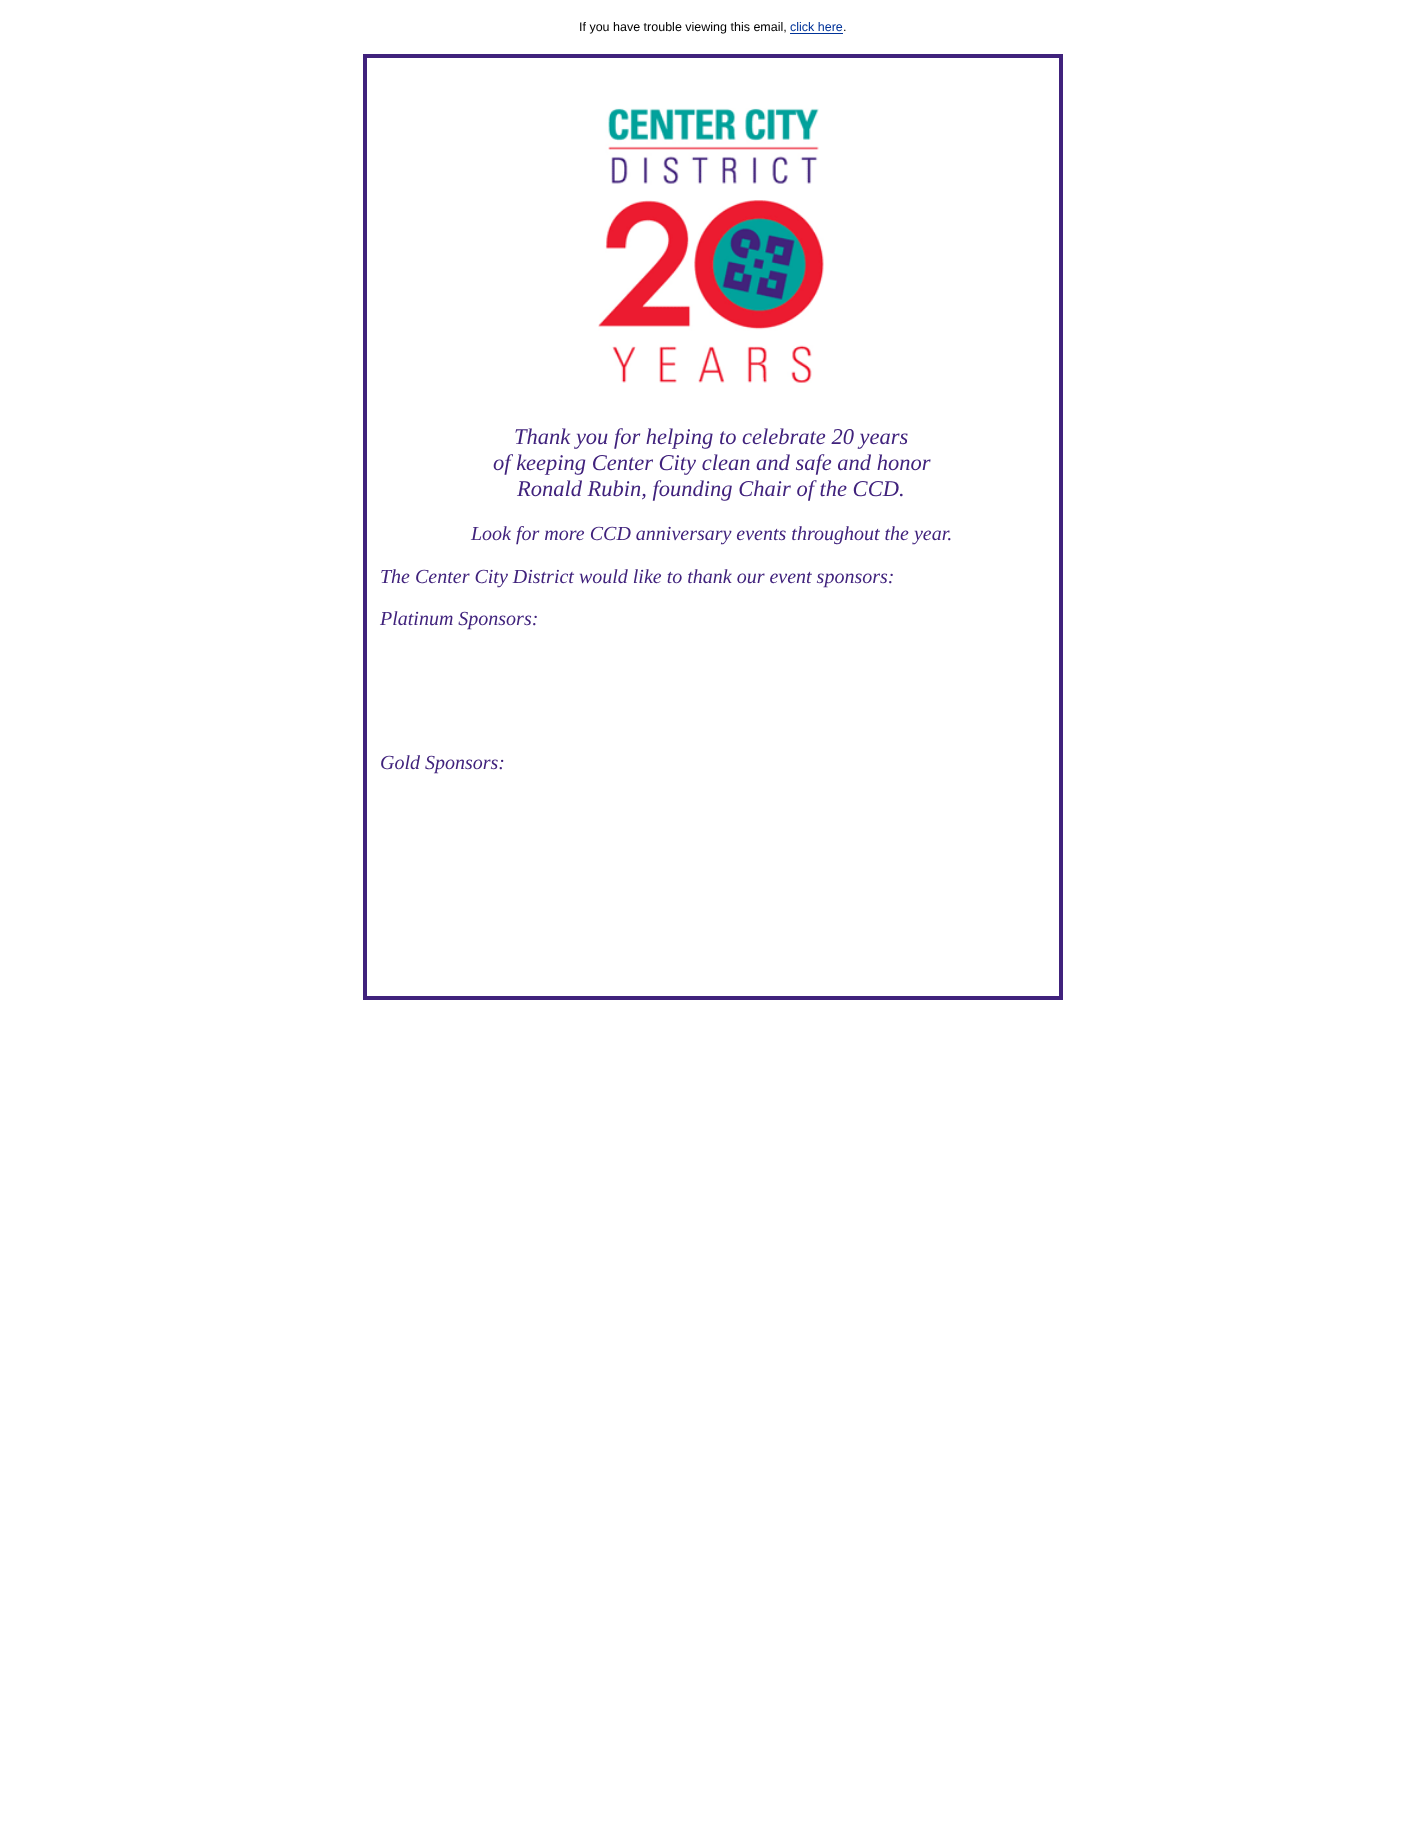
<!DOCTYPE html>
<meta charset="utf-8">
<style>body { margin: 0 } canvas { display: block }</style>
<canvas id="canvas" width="1425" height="1847"></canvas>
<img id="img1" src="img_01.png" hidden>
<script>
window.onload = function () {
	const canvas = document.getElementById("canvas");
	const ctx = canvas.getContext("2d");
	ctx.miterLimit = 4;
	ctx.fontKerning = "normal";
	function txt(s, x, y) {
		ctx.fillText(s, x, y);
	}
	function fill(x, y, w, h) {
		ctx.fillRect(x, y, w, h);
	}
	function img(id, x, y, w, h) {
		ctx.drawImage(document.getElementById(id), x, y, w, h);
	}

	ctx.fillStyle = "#FFFFFF";
	fill(0, 0, 1425, 1847);
	ctx.fillStyle = "#003399";
	fill(790, 33, 53, 1);
	ctx.fillStyle = "#40227C";
	fill(363, 54, 700, 4);
	fill(1059, 54, 4, 946);
	fill(363, 996, 700, 4);
	fill(363, 54, 4, 946);
	img("img1", 598, 108, 226, 275);
	ctx.font = "12.5px Liberation Sans";
	ctx.fillStyle = "#000000";
	txt("If you have trouble viewing this email,", 579, 31);
	ctx.fillStyle = "#003399";
	txt("click here", 790, 31);
	ctx.fillStyle = "#000000";
	txt(".", 843, 31);
	ctx.font = "italic 22.5px Liberation Serif";
	ctx.fillStyle = "#40227C";
	txt("Thank you for helping to celebrate 20 years", 514, 444);
	txt("of keeping Center City clean and safe and honor", 493, 470);
	txt("Ronald Rubin, founding Chair of the CCD.", 517, 496);
	ctx.font = "italic 20px Liberation Serif";
	txt("Look for more CCD anniversary events throughout the year.", 471, 540);
	txt("The Center City District would like to thank our event sponsors:", 380, 583);
	txt("Platinum Sponsors:", 380, 625);
	txt("Gold Sponsors:", 380, 769);
};
</script>
